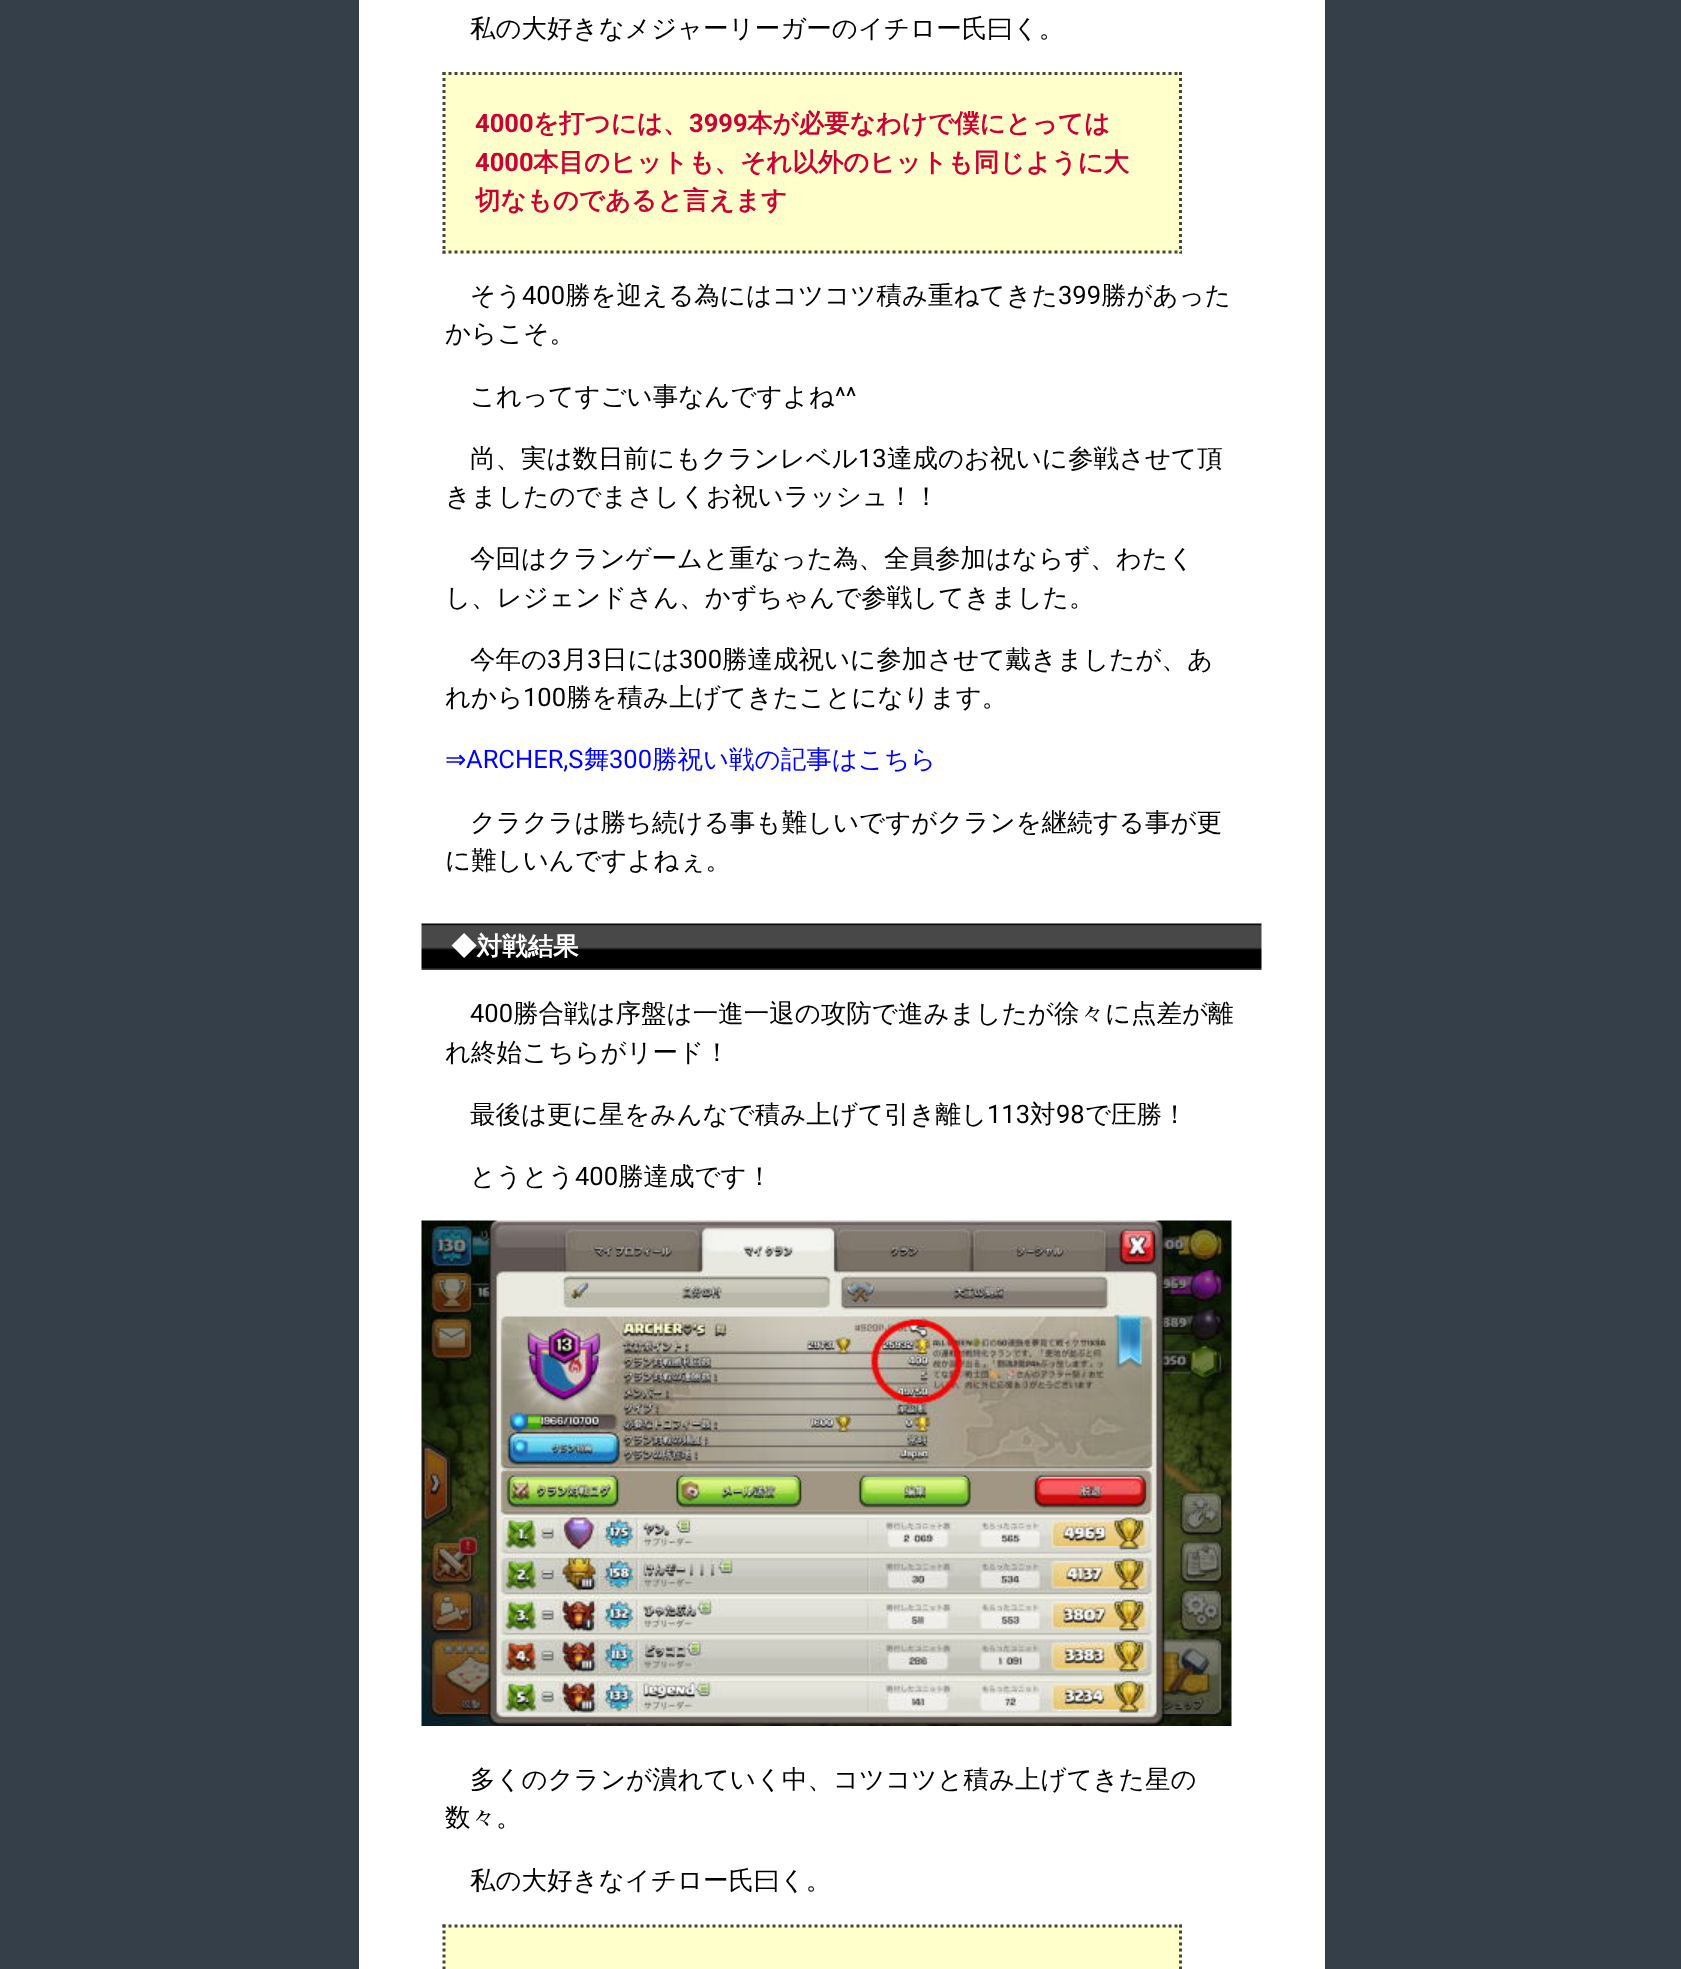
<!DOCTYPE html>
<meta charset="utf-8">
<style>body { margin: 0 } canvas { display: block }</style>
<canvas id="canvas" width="1681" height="1969"></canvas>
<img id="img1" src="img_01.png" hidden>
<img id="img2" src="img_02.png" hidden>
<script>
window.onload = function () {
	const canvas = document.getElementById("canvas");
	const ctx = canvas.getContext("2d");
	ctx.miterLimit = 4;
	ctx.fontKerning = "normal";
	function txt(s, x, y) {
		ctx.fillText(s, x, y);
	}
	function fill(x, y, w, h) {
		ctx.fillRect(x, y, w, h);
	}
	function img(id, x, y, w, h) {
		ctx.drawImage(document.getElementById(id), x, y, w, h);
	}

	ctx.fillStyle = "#343F4A";
	fill(0, 0, 1681, 1969);
	ctx.fillStyle = "#FFFFFF";
	fill(359, 0, 966, 1969);
	ctx.fillStyle = "#FFFFCC";
	fill(443, 72, 739, 182);
	ctx.beginPath();
	ctx.moveTo(442.5, 73.5);
	ctx.lineTo(1182, 73.5);
	ctx.strokeStyle = "#444444";
	ctx.lineWidth = 3;
	ctx.setLineDash([3, 3]);
	ctx.stroke();
	ctx.beginPath();
	ctx.moveTo(1180.5, 72);
	ctx.lineTo(1180.5, 253.5);
	ctx.stroke();
	ctx.beginPath();
	ctx.moveTo(442.5, 252);
	ctx.lineTo(1182, 252);
	ctx.stroke();
	ctx.beginPath();
	ctx.moveTo(444, 72);
	ctx.lineTo(444, 253.5);
	ctx.stroke();
	img("img1", 421, 923, 841, 47);
	img("img2", 421, 1220, 811, 506);
	fill(443, 1925, 739, 44);
	ctx.beginPath();
	ctx.moveTo(442.5, 1926);
	ctx.lineTo(1182, 1926);
	ctx.stroke();
	ctx.beginPath();
	ctx.moveTo(1180.5, 1924.5);
	ctx.lineTo(1180.5, 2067);
	ctx.stroke();
	ctx.beginPath();
	ctx.moveTo(444, 1924.5);
	ctx.lineTo(444, 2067);
	ctx.stroke();
	ctx.font = "500 25.5px WenQuanYi Zen Hei";
	ctx.fillStyle = "#000000";
	txt("私の大好きなメジャーリーガーのイチロー氏曰く。", 470, 37);
	ctx.font = "bold 25.5px Roboto";
	ctx.fillStyle = "#CC0033";
	txt("4000", 475, 132);
	ctx.font = "bold 25.5px WenQuanYi Zen Hei";
	txt("を打つには、", 533, 132);
	ctx.font = "bold 25.5px Roboto";
	txt("3999", 689, 132);
	ctx.font = "bold 25.5px WenQuanYi Zen Hei";
	txt("本が必要なわけで僕にとっては", 747, 132);
	ctx.font = "bold 25.5px Roboto";
	txt("4000", 475, 171);
	ctx.font = "bold 25.5px WenQuanYi Zen Hei";
	txt("本目のヒットも、それ以外のヒットも同じように大", 533, 171);
	txt("切なものであると言えます", 475, 209);
	ctx.font = "500 25.5px WenQuanYi Zen Hei";
	ctx.fillStyle = "#000000";
	txt("そう", 470, 304);
	ctx.font = "25.5px Roboto";
	txt("400", 522, 304);
	ctx.font = "500 25.5px WenQuanYi Zen Hei";
	txt("勝を迎える為にはコツコツ積み重ねてきた", 565, 304);
	ctx.font = "25.5px Roboto";
	txt("399", 1058, 304);
	ctx.font = "500 25.5px WenQuanYi Zen Hei";
	txt("勝があった", 1101, 304);
	txt("からこそ。", 445, 342);
	txt("これってすごい事なんですよね", 470, 405);
	ctx.font = "25.5px Roboto";
	txt("^^", 835, 405);
	ctx.font = "500 25.5px WenQuanYi Zen Hei";
	txt("尚、実は数日前にもクランレベル", 470, 467);
	ctx.font = "25.5px Roboto";
	txt("13", 858, 467);
	ctx.font = "500 25.5px WenQuanYi Zen Hei";
	txt("達成のお祝いに参戦させて頂", 887, 467);
	txt("きましたのでまさしくお祝いラッシュ！！", 445, 505);
	txt("今回はクランゲームと重なった為、全員参加はならず、わたく", 470, 567);
	txt("し、レジェンドさん、かずちゃんで参戦してきました。", 445, 606);
	txt("今年の", 470, 668);
	ctx.font = "25.5px Roboto";
	txt("3", 547, 668);
	ctx.font = "500 25.5px WenQuanYi Zen Hei";
	txt("月", 562, 668);
	ctx.font = "25.5px Roboto";
	txt("3", 587, 668);
	ctx.font = "500 25.5px WenQuanYi Zen Hei";
	txt("日には", 602, 668);
	ctx.font = "25.5px Roboto";
	txt("300", 679, 668);
	ctx.font = "500 25.5px WenQuanYi Zen Hei";
	txt("勝達成祝いに参加させて戴きましたが、あ", 722, 668);
	txt("れから", 445, 706);
	ctx.font = "25.5px Roboto";
	txt("100", 523, 706);
	ctx.font = "500 25.5px WenQuanYi Zen Hei";
	txt("勝を積み上げてきたことになります。", 566, 706);
	ctx.font = "25.5px DejaVu Sans";
	ctx.fillStyle = "#0000FF";
	txt("⇒", 445, 768);
	ctx.font = "25.5px Roboto";
	txt("ARCHER,S", 466, 768);
	ctx.font = "500 25.5px WenQuanYi Zen Hei";
	txt("舞", 584, 768);
	ctx.font = "25.5px Roboto";
	txt("300", 609, 768);
	ctx.font = "500 25.5px WenQuanYi Zen Hei";
	txt("勝祝い戦の記事はこちら", 652, 768);
	ctx.fillStyle = "#000000";
	txt("クラクラは勝ち続ける事も難しいですがクランを継続する事が更", 470, 831);
	txt("に難しいんですよねぇ。", 445, 869);
	ctx.font = "bold 25.5px WenQuanYi Zen Hei";
	ctx.fillStyle = "#FFFFFF";
	txt("◆対戦結果", 451, 955);
	ctx.font = "25.5px Roboto";
	ctx.fillStyle = "#000000";
	txt("400", 470, 1022);
	ctx.font = "500 25.5px WenQuanYi Zen Hei";
	txt("勝合戦は序盤は一進一退の攻防で進みましたが徐々に点差が離", 513, 1022);
	txt("れ終始こちらがリード！", 445, 1061);
	txt("最後は更に星をみんなで積み上げて引き離し", 470, 1123);
	ctx.font = "25.5px Roboto";
	txt("113", 987, 1123);
	ctx.font = "500 25.5px WenQuanYi Zen Hei";
	txt("対", 1030, 1123);
	ctx.font = "25.5px Roboto";
	txt("98", 1056, 1123);
	ctx.font = "500 25.5px WenQuanYi Zen Hei";
	txt("で圧勝！", 1085, 1123);
	txt("とうとう", 470, 1185);
	ctx.font = "25.5px Roboto";
	txt("400", 575, 1185);
	ctx.font = "500 25.5px WenQuanYi Zen Hei";
	txt("勝達成です！", 618, 1185);
	txt("多くのクランが潰れていく中、コツコツと積み上げてきた星の", 470, 1788);
	txt("数々。", 445, 1826);
	txt("私の大好きなイチロー氏曰く。", 470, 1889);
};
</script>
